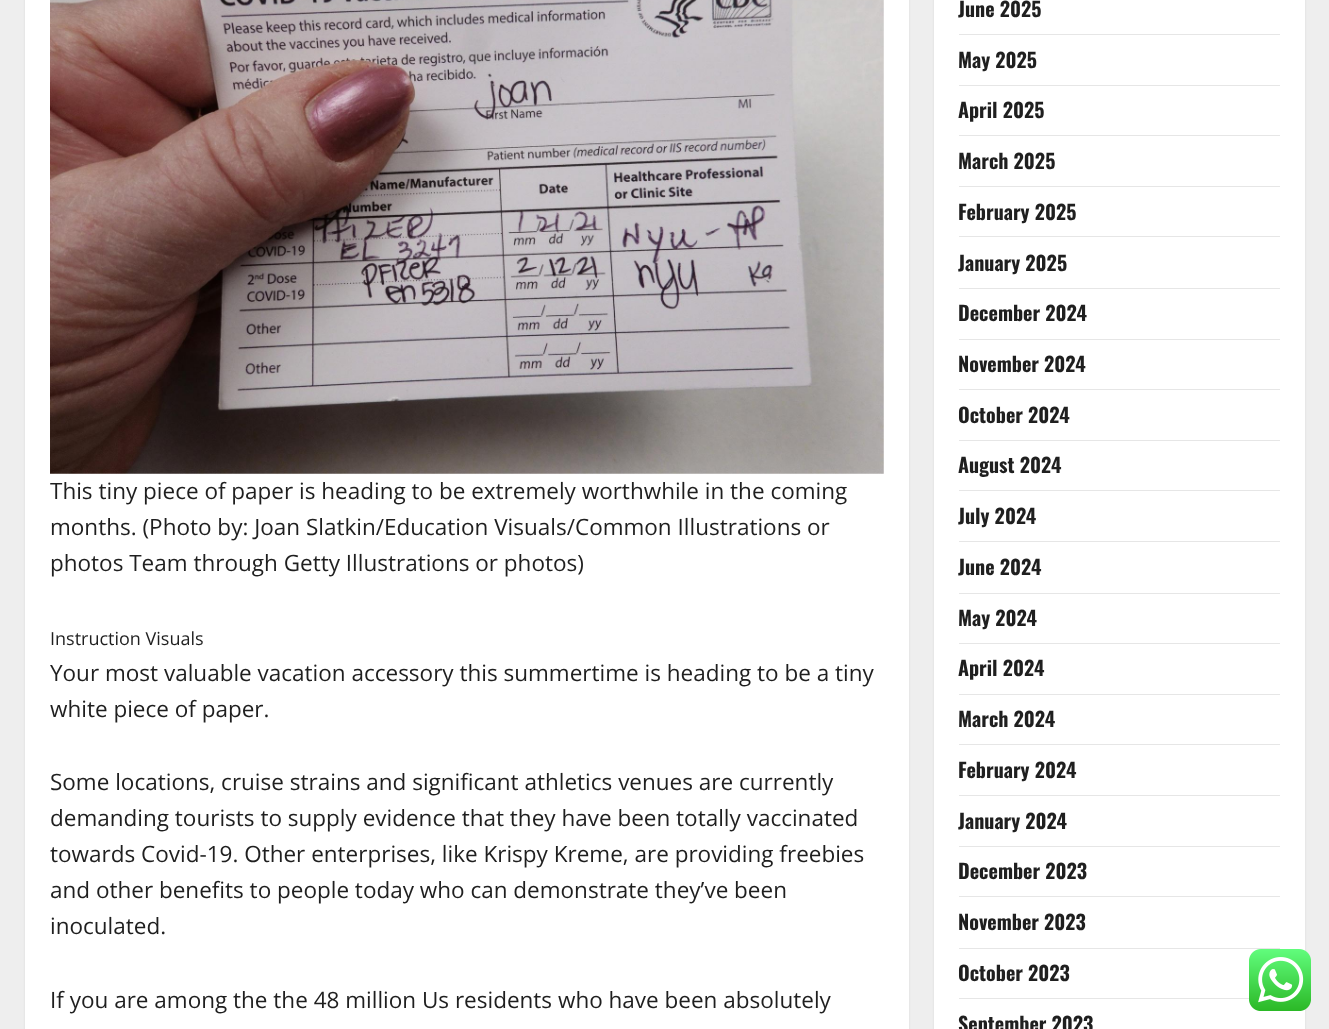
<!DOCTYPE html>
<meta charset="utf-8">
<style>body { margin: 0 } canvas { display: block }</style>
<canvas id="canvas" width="1329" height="1029"></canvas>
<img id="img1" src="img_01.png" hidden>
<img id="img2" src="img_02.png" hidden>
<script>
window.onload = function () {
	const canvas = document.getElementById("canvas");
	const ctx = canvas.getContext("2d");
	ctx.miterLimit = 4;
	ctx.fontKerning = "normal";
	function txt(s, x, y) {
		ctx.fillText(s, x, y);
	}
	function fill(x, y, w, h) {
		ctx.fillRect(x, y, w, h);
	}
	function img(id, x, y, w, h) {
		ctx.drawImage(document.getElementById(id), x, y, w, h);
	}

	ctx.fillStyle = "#EEEEEE";
	fill(0, 0, 1329, 1029);
	ctx.fillStyle = "rgba(0, 0, 0, 0.08)";
	ctx.filter = "blur(1px)";
	ctx.beginPath();
	ctx.rect(25, -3, 884, 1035);
	ctx.fill();
	ctx.filter = "none";
	ctx.fillStyle = "#FFFFFF";
	fill(25, 0, 884, 1029);
	img("img1", 50, 0, 834, 474);
	ctx.fillStyle = "rgba(0, 0, 0, 0.08)";
	ctx.filter = "blur(1px)";
	ctx.beginPath();
	ctx.rect(934, -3, 371, 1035);
	ctx.fill();
	ctx.filter = "none";
	ctx.fillStyle = "#FFFFFF";
	fill(934, 0, 371, 1029);
	ctx.fillStyle = "#E6E6E6";
	fill(959, 34, 321, 1);
	fill(959, 85, 321, 1);
	fill(959, 135, 321, 1);
	fill(959, 186, 321, 1);
	fill(959, 236, 321, 1);
	fill(959, 288, 321, 1);
	fill(959, 339, 321, 1);
	fill(959, 389, 321, 1);
	fill(959, 440, 321, 1);
	fill(959, 490, 321, 1);
	fill(959, 541, 321, 1);
	fill(959, 593, 321, 1);
	fill(959, 643, 321, 1);
	fill(959, 694, 321, 1);
	fill(959, 744, 321, 1);
	fill(959, 795, 321, 1);
	fill(959, 846, 321, 1);
	fill(959, 896, 321, 1);
	fill(959, 948, 321, 1);
	fill(959, 998, 290, 1);
	img("img2", 1249, 949, 62, 62);
	ctx.font = "22.5px Open Sans";
	ctx.fillStyle = "#1F1F1F";
	txt("This tiny piece of paper is heading to be extremely worthwhile in the coming", 50, 499);
	txt("months. (Photo by: Joan Slatkin/Education Visuals/Common Illustrations or", 50, 535);
	txt("photos Team through Getty Illustrations or photos)", 50, 571);
	ctx.font = "18px Open Sans";
	txt("Instruction Visuals", 50, 645);
	ctx.font = "22.5px Open Sans";
	txt("Your most valuable vacation accessory this summertime is heading to be a tiny", 50, 681);
	txt("white piece of paper.", 50, 717);
	txt("Some locations, cruise strains and significant athletics venues are currently", 50, 790);
	txt("demanding tourists to supply evidence that they have been totally vaccinated", 50, 826);
	txt("towards Covid-19. Other enterprises, like Krispy Kreme, are providing freebies", 50, 862);
	txt("and other benefits to people today who can demonstrate they’ve been", 50, 898);
	txt("inoculated.", 50, 934);
	txt("If you are among the the 48 million Us residents who have been absolutely", 50, 1008);
	ctx.font = "bold 20px Oswald";
	txt("June 2025", 958, 17);
	txt("May 2025", 958, 68);
	txt("April 2025", 958, 118);
	txt("March 2025", 958, 169);
	txt("February 2025", 958, 220);
	txt("January 2025", 958, 271);
	txt("December 2024", 958, 321);
	txt("November 2024", 958, 372);
	txt("October 2024", 958, 423);
	txt("August 2024", 958, 473);
	txt("July 2024", 958, 524);
	txt("June 2024", 958, 575);
	txt("May 2024", 958, 626);
	txt("April 2024", 958, 676);
	txt("March 2024", 958, 727);
	txt("February 2024", 958, 778);
	txt("January 2024", 958, 829);
	txt("December 2023", 958, 879);
	txt("November 2023", 958, 930);
	txt("October 2023", 958, 981);
	txt("September 2023", 958, 1032);
};
</script>
